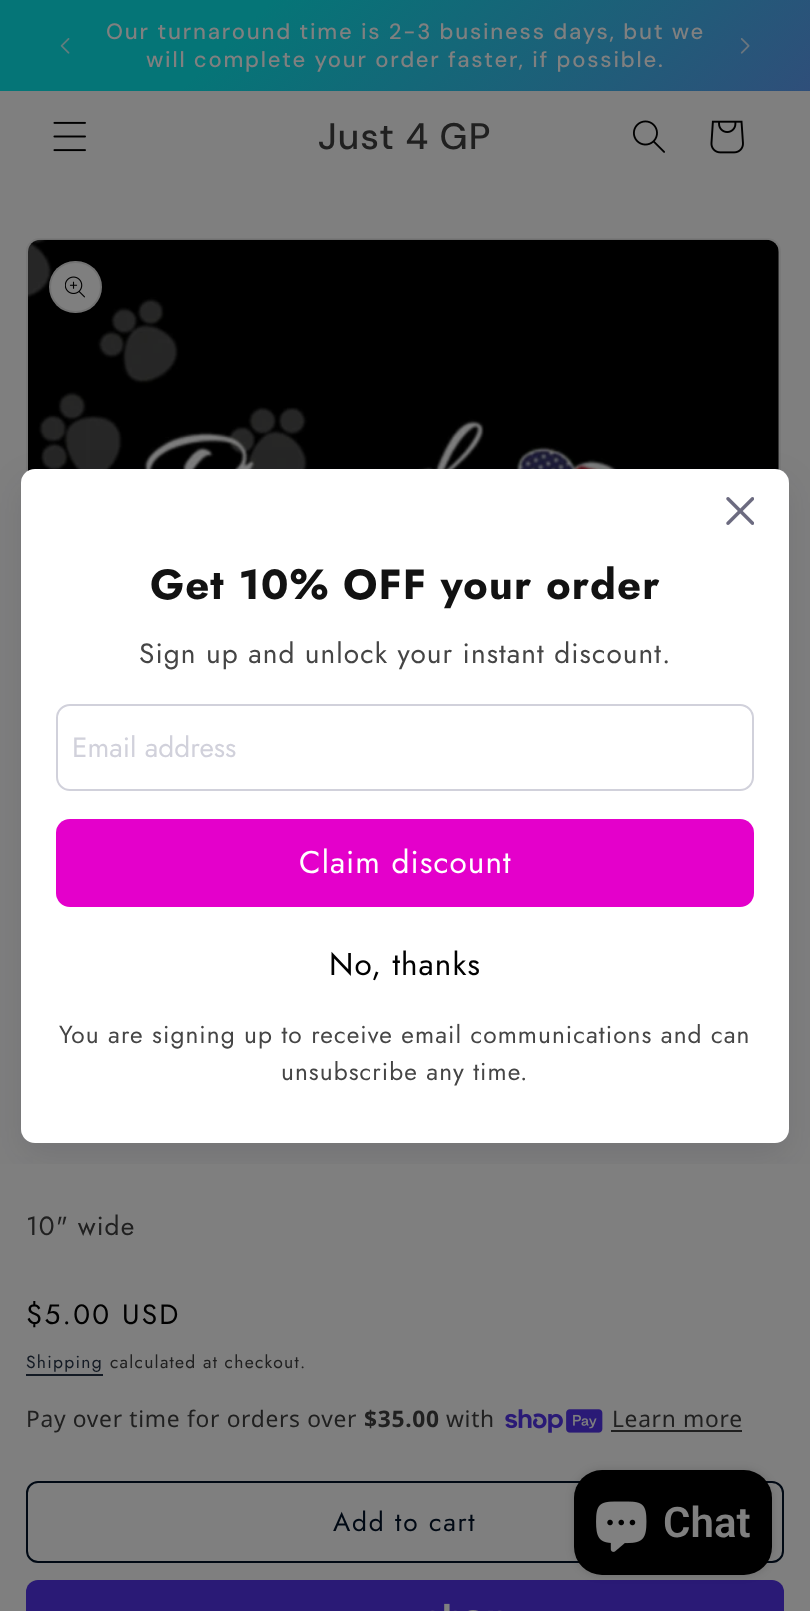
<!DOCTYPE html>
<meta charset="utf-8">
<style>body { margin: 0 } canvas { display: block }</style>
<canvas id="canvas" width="810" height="1611"></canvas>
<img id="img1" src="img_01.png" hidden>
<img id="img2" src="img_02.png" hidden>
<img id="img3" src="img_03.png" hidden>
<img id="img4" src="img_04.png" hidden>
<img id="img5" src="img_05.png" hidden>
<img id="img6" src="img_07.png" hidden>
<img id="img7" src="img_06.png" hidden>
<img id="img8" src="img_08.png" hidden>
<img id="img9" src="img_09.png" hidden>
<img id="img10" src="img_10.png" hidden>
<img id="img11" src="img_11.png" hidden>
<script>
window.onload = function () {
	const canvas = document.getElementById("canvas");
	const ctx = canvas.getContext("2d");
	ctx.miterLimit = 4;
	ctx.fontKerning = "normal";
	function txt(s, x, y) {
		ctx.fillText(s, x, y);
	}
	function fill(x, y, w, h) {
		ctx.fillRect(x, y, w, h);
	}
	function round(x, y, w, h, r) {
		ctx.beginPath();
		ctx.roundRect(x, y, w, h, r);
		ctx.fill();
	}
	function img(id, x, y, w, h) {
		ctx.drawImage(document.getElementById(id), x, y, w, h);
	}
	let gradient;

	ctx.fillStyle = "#7F7F7F";
	fill(0, 0, 810, 1611);
	gradient = ctx.createLinearGradient(-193, 186, 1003, 1425);
	gradient.addColorStop(0.11, "#057577");
	gradient.addColorStop(0.84, "#7D077F");
	ctx.fillStyle = gradient;
	fill(0, 0, 810, 91);
	img("img1", 60, 38, 10, 16);
	img("img2", 740, 38, 10, 16);
	img("img3", 53, 121, 33, 31);
	img("img4", 633, 120, 32, 33);
	img("img5", 710, 120, 34, 34);
	ctx.beginPath();
	ctx.roundRect(27, 239, 753, 752, 13);
	ctx.strokeStyle = "#787878";
	ctx.lineWidth = 2;
	ctx.stroke();
	img("img6", 28, 239, 751, 232);
	ctx.save();
	ctx.beginPath();
	ctx.rect(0, 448, 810, 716);
	ctx.clip();
	ctx.fillStyle = "rgba(18, 17, 39, 0.1)";
	ctx.filter = "blur(17.5px)";
	ctx.beginPath();
	ctx.roundRect(21, 483, 768, 674, 14);
	ctx.fill();
	ctx.filter = "none";
	ctx.restore();
	ctx.fillStyle = "#FFFFFF";
	round(21, 469, 768, 674, 14);
	img("img7", 726, 497, 28, 28);
	ctx.beginPath();
	ctx.roundRect(57, 705, 696, 85, 13);
	ctx.strokeStyle = "#D1D1DB";
	ctx.stroke();
	ctx.fillStyle = "#E400CB";
	round(56, 819, 698, 88, 14);
	ctx.fillStyle = "#7F7F7F";
	round(49, 261, 53, 52, 26);
	ctx.beginPath();
	ctx.roundRect(50, 262, 51, 50, 25);
	ctx.strokeStyle = "rgba(0, 0, 0, 0.1)";
	ctx.stroke();
	img("img8", 65, 276, 20, 22);
	ctx.fillStyle = "#131A24";
	fill(26, 1374, 77, 2);
	img("img9", 505, 1409, 98, 24);
	ctx.fillStyle = "#202020";
	fill(611, 1430, 131, 2);
	ctx.beginPath();
	ctx.roundRect(27, 1482, 756, 80, 11);
	ctx.strokeStyle = "#000914";
	ctx.stroke();
	ctx.fillStyle = "#2A1A76";
	round(26, 1580, 758, 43, 12);
	img("img10", 430, 1603, 72, 8);
	ctx.fillStyle = "rgba(0, 0, 0, 0.15)";
	ctx.filter = "blur(4.5px)";
	ctx.beginPath();
	ctx.roundRect(574, 1470, 198, 105, 28);
	ctx.fill();
	ctx.filter = "none";
	ctx.fillStyle = "#000000";
	round(574, 1470, 198, 105, 28);
	img("img11", 596, 1501, 51, 51);
	ctx.letterSpacing = "1.75px";
	ctx.font = "500 22.05px 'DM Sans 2'";
	ctx.fillStyle = "#808080";
	txt("Our turnaround time is 2-3 business days, but we", 106, 39);
	txt("will complete your order faster, if possible.", 146, 67);
	ctx.letterSpacing = "1px";
	ctx.font = "500 36.75px DM Sans";
	ctx.fillStyle = "#202020";
	txt("Just 4 GP", 318, 149);
	ctx.letterSpacing = "1.05px";
	ctx.font = "bold 42px Jost";
	ctx.fillStyle = "#121212";
	txt("Get 10% OFF your order", 150, 599);
	ctx.font = "28px Jost";
	ctx.fillStyle = "#454545";
	txt("Sign up and unlock your instant discount.", 139, 663);
	ctx.letterSpacing = "0px";
	ctx.fillStyle = "#D1D1DB";
	txt("Email address", 72, 757);
	ctx.letterSpacing = "1.05px";
	ctx.font = "31.5px Jost";
	ctx.fillStyle = "#FFFFFF";
	txt("Claim discount", 299, 873);
	ctx.fillStyle = "#000000";
	txt("No, thanks", 329, 975);
	ctx.font = "24.5px Jost";
	ctx.fillStyle = "#454545";
	txt("You are signing up to receive email communications and can", 59, 1043);
	txt("unsubscribe any time.", 281, 1080);
	ctx.font = "26.25px Jost";
	ctx.fillStyle = "#202020";
	txt("10\" wide", 26, 1235);
	ctx.letterSpacing = "2.25px";
	ctx.font = "28px Jost";
	ctx.fillStyle = "#000000";
	txt("$5.00 USD", 26, 1324);
	ctx.letterSpacing = "1.25px";
	ctx.font = "17.5px Jost";
	ctx.fillStyle = "#131A24";
	txt("Shipping", 26, 1368);
	ctx.fillStyle = "#202020";
	txt("calculated at checkout.", 110, 1368);
	ctx.letterSpacing = "0.7px";
	ctx.font = "22.75px Noto Sans";
	txt("Pay over time for orders over", 26, 1427);
	ctx.font = "bold 22.75px Noto Sans";
	txt("$35.00", 364, 1427);
	ctx.font = "22.75px Noto Sans";
	txt("with", 446, 1427);
	txt("Learn more", 612, 1427);
	ctx.letterSpacing = "1.75px";
	ctx.font = "26.25px Jost";
	ctx.fillStyle = "#000914";
	txt("Add to cart", 333, 1531);
	ctx.letterSpacing = "0px";
	ctx.font = "600 42px Roboto";
	ctx.fillStyle = "#808080";
	txt("Chat", 663, 1537);
};
</script>
